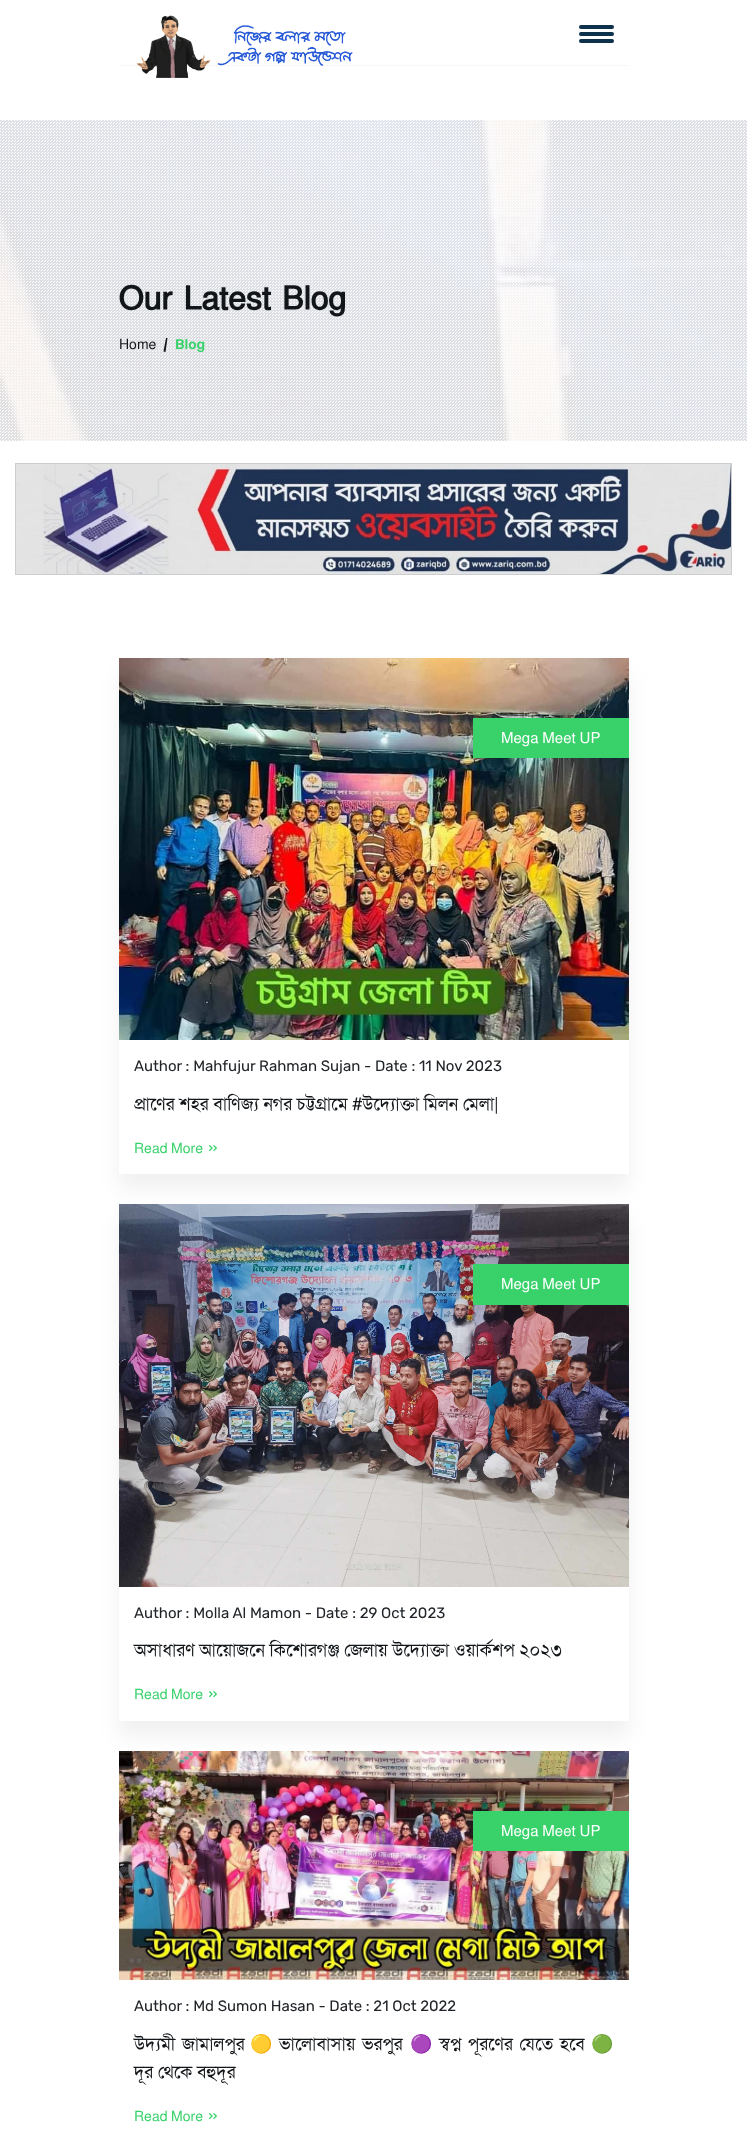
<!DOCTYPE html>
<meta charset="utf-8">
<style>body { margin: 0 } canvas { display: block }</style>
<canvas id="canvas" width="747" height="2131"></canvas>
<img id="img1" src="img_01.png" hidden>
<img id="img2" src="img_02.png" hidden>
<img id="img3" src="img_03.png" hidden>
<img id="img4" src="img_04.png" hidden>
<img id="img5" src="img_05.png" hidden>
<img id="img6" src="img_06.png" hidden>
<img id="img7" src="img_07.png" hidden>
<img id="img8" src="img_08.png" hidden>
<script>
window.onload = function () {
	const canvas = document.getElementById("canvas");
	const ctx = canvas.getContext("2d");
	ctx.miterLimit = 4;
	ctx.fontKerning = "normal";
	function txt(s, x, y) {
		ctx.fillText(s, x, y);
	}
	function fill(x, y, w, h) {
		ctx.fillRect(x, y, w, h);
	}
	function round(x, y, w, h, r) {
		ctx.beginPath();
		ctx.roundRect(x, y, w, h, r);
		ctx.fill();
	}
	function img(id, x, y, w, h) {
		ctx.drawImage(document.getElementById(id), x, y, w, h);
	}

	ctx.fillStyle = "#FFFFFF";
	fill(0, 0, 747, 2131);
	ctx.fillStyle = "#F7F7F7";
	fill(119, 65, 510, 1);
	img("img1", 136, 15, 217, 63);
	ctx.fillStyle = "#0E314C";
	round(579, 25, 35, 4, 2);
	round(579, 32, 35, 4, 2);
	round(579, 39, 35, 4, 2);
	img("img2", 0, 120, 747, 321);
	img("img3", 0, 120, 747, 321);
	ctx.fillStyle = "#121619";
	ctx.beginPath();
	ctx.moveTo(166, 338);
	ctx.lineTo(167.5, 338);
	ctx.lineTo(165.5, 352);
	ctx.lineTo(163.5, 351.5);
	ctx.closePath();
	ctx.fill();
	ctx.strokeStyle = "#CDCDCD";
	ctx.strokeRect(15.5, 463.5, 716, 111);
	img("img4", 16, 464, 715, 110);
	ctx.save();
	ctx.beginPath();
	ctx.moveTo(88, 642);
	ctx.lineTo(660, 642);
	ctx.lineTo(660, 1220);
	ctx.lineTo(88, 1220);
	ctx.closePath();
	ctx.moveTo(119, 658);
	ctx.lineTo(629, 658);
	ctx.lineTo(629, 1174);
	ctx.lineTo(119, 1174);
	ctx.closePath();
	ctx.clip("evenodd");
	ctx.fillStyle = "rgba(0, 0, 0, 0.06)";
	ctx.filter = "blur(10px)";
	ctx.beginPath();
	ctx.rect(119, 673, 510, 516);
	ctx.fill();
	ctx.filter = "none";
	ctx.restore();
	img("img5", 119, 658, 510, 382);
	ctx.fillStyle = "#38D16A";
	fill(473, 718, 156, 40);
	img("img6", 208, 1145, 10, 7);
	ctx.save();
	ctx.beginPath();
	ctx.moveTo(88, 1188);
	ctx.lineTo(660, 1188);
	ctx.lineTo(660, 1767);
	ctx.lineTo(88, 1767);
	ctx.closePath();
	ctx.moveTo(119, 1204);
	ctx.lineTo(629, 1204);
	ctx.lineTo(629, 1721);
	ctx.lineTo(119, 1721);
	ctx.closePath();
	ctx.clip("evenodd");
	ctx.fillStyle = "rgba(0, 0, 0, 0.06)";
	ctx.filter = "blur(10px)";
	ctx.beginPath();
	ctx.rect(119, 1219, 510, 517);
	ctx.fill();
	ctx.filter = "none";
	ctx.restore();
	img("img7", 119, 1204, 510, 383);
	fill(473, 1264, 156, 41);
	img("img6", 208, 1691, 10, 7);
	img("img8", 119, 1751, 510, 229);
	fill(473, 1811, 156, 40);
	img("img6", 208, 2113, 10, 7);
	ctx.font = "bold 32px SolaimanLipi";
	ctx.fillStyle = "#121619";
	txt("Our Latest Blog", 119, 309);
	ctx.font = "14px SolaimanLipi";
	txt("Home", 119, 349);
	ctx.font = "500 14px Rubik";
	ctx.fillStyle = "#38D16A";
	txt("Blog", 175, 349);
	ctx.font = "15px SolaimanLipi";
	ctx.fillStyle = "#FFFFFF";
	txt("Mega Meet UP", 501, 743);
	ctx.font = "15px Rubik";
	ctx.fillStyle = "#212529";
	txt("Author : Mahfujur Rahman Sujan - Date : 11 Nov 2023", 134, 1071);
	ctx.font = "18px SolaimanLipi";
	ctx.fillStyle = "#121619";
	txt("প্রাণের শহর বাণিজ্য নগর চট্টগ্রামে #উদ্যোক্তা মিলন মেলা|", 134, 1110);
	ctx.font = "14px SolaimanLipi";
	ctx.fillStyle = "#38D16A";
	txt("Read More", 134, 1153);
	ctx.font = "15px SolaimanLipi";
	ctx.fillStyle = "#FFFFFF";
	txt("Mega Meet UP", 501, 1289);
	ctx.font = "15px Rubik";
	ctx.fillStyle = "#212529";
	txt("Author : Molla Al Mamon - Date : 29 Oct 2023", 134, 1618);
	ctx.font = "18px SolaimanLipi";
	ctx.fillStyle = "#121619";
	txt("অসাধারণ আয়োজনে কিশোরগঞ্জ জেলায় উদ্যোক্তা ওয়ার্কশপ ২০২৩", 134, 1656);
	ctx.font = "14px SolaimanLipi";
	ctx.fillStyle = "#38D16A";
	txt("Read More", 134, 1699);
	ctx.font = "15px SolaimanLipi";
	ctx.fillStyle = "#FFFFFF";
	txt("Mega Meet UP", 501, 1836);
	ctx.font = "15px Rubik";
	ctx.fillStyle = "#212529";
	txt("Author : Md Sumon Hasan - Date : 21 Oct 2022", 134, 2011);
	ctx.wordSpacing = "2px";
	ctx.font = "18px SolaimanLipi";
	ctx.fillStyle = "#121619";
	txt("উদ্যমী জামালপুর", 134, 2050);
	ctx.wordSpacing = "0px";
	ctx.font = "18px Noto Color Emoji";
	txt("🟡", 250, 2050);
	ctx.wordSpacing = "2px";
	ctx.font = "18px SolaimanLipi";
	txt("ভালোবাসায় ভরপুর", 279, 2050);
	ctx.wordSpacing = "0px";
	ctx.font = "18px Noto Color Emoji";
	txt("🟣", 410, 2050);
	ctx.wordSpacing = "2px";
	ctx.font = "18px SolaimanLipi";
	txt("স্বপ্ন পূরণের যেতে হবে", 439, 2050);
	ctx.wordSpacing = "0px";
	ctx.font = "18px Noto Color Emoji";
	txt("🟢", 591, 2050);
	ctx.font = "18px SolaimanLipi";
	txt("দূর থেকে বহুদূর", 134, 2078);
	ctx.font = "14px SolaimanLipi";
	ctx.fillStyle = "#38D16A";
	txt("Read More", 134, 2121);
};
</script>
